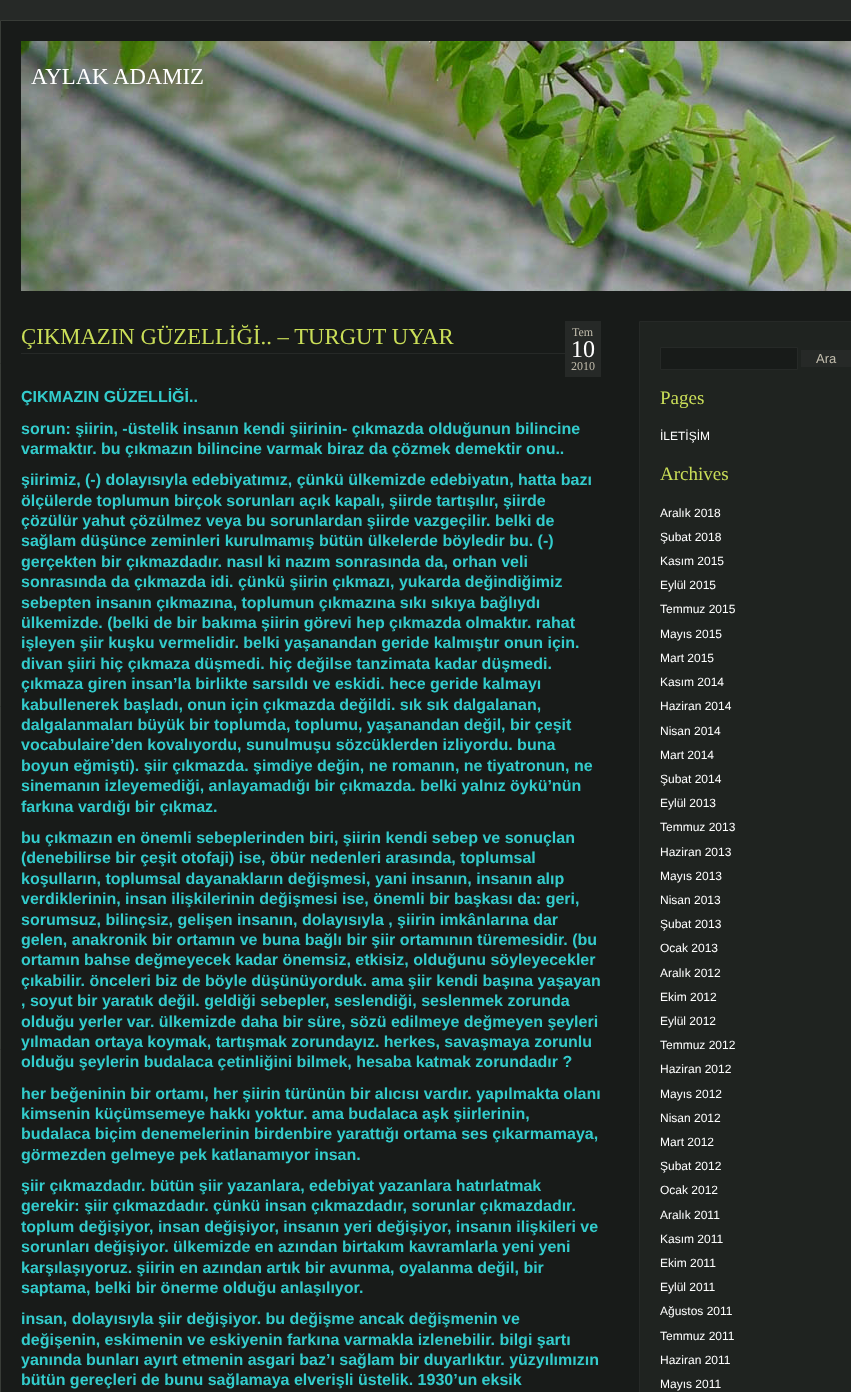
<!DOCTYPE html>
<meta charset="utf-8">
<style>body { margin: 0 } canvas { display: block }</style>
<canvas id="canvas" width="851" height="1392"></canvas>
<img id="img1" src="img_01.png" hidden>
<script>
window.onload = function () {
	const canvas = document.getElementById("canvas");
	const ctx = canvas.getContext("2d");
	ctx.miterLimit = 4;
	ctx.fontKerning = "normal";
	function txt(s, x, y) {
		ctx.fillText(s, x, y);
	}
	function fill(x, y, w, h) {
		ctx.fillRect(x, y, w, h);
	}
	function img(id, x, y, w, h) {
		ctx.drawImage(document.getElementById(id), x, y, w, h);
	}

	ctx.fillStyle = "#262927";
	fill(0, 0, 851, 1392);
	ctx.fillStyle = "#181B19";
	ctx.beginPath();
	ctx.rect(0.5, 20.5, 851, 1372);
	ctx.fill();
	ctx.strokeStyle = "#383C37";
	ctx.stroke();
	img("img1", 21, 41, 830, 250);
	ctx.fillStyle = "#262927";
	fill(21, 353, 544, 1);
	fill(565, 321, 36, 56);
	ctx.fillStyle = "#1F2320";
	ctx.beginPath();
	ctx.rect(639.5, 321.5, 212, 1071);
	ctx.fill();
	ctx.strokeStyle = "#262927";
	ctx.stroke();
	ctx.fillStyle = "#181B19";
	ctx.beginPath();
	ctx.rect(660.5, 347.5, 137, 22);
	ctx.fill();
	ctx.stroke();
	ctx.fillStyle = "#262927";
	fill(801, 350, 50, 17);
	ctx.font = "22.75px Liberation Serif";
	ctx.fillStyle = "#FFFFFF";
	txt("AYLAK ADAMIZ", 31, 84);
	ctx.fillStyle = "#CADE58";
	txt("ÇIKMAZIN GÜZELLİĞİ.. – TURGUT UYAR", 21, 344);
	ctx.font = "12px Liberation Serif";
	ctx.fillStyle = "#C1BCAC";
	txt("Tem", 572, 336);
	ctx.font = "24px Liberation Serif";
	ctx.fillStyle = "#FFFFFF";
	txt("10", 571, 357);
	ctx.font = "12px Liberation Serif";
	ctx.fillStyle = "#C1BCAC";
	txt("2010", 571, 370);
	ctx.font = "bold 16px Liberation Sans";
	ctx.fillStyle = "#33CCCC";
	txt("ÇIKMAZIN GÜZELLİĞİ..", 21, 402);
	txt("sorun: şiirin, -üstelik insanın kendi şiirinin- çıkmazda olduğunun bilincine", 21, 434);
	txt("varmaktır. bu çıkmazın bilincine varmak biraz da çözmek demektir onu..", 21, 454);
	txt("şiirimiz, (-) dolayısıyla edebiyatımız, çünkü ülkemizde edebiyatın, hatta bazı", 21, 485);
	txt("ölçülerde toplumun birçok sorunları açık kapalı, şiirde tartışılır, şiirde", 21, 506);
	txt("çözülür yahut çözülmez veya bu sorunlardan şiirde vazgeçilir. belki de", 21, 526);
	txt("sağlam düşünce zeminleri kurulmamış bütün ülkelerde böyledir bu. (-)", 21, 546);
	txt("gerçekten bir çıkmazdadır. nasıl ki nazım sonrasında da, orhan veli", 21, 567);
	txt("sonrasında da çıkmazda idi. çünkü şiirin çıkmazı, yukarda değindiğimiz", 21, 587);
	txt("sebepten insanın çıkmazına, toplumun çıkmazına sıkı sıkıya bağlıydı", 21, 608);
	txt("ülkemizde. (belki de bir bakıma şiirin görevi hep çıkmazda olmaktır. rahat", 21, 628);
	txt("işleyen şiir kuşku vermelidir. belki yaşanandan geride kalmıştır onun için.", 21, 648);
	txt("divan şiiri hiç çıkmaza düşmedi. hiç değilse tanzimata kadar düşmedi.", 21, 669);
	txt("çıkmaza giren insan’la birlikte sarsıldı ve eskidi. hece geride kalmayı", 21, 689);
	txt("kabullenerek başladı, onun için çıkmazda değildi. sık sık dalgalanan,", 21, 710);
	txt("dalgalanmaları büyük bir toplumda, toplumu, yaşanandan değil, bir çeşit", 21, 730);
	txt("vocabulaire’den kovalıyordu, sunulmuşu sözcüklerden izliyordu. buna", 21, 750);
	txt("boyun eğmişti). şiir çıkmazda. şimdiye değin, ne romanın, ne tiyatronun, ne", 21, 771);
	txt("sinemanın izleyemediği, anlayamadığı bir çıkmazda. belki yalnız öykü’nün", 21, 791);
	txt("farkına vardığı bir çıkmaz.", 21, 812);
	txt("bu çıkmazın en önemli sebeplerinden biri, şiirin kendi sebep ve sonuçlan", 21, 843);
	txt("(denebilirse bir çeşit otofaji) ise, öbür nedenleri arasında, toplumsal", 21, 863);
	txt("koşulların, toplumsal dayanakların değişmesi, yani insanın, insanın alıp", 21, 884);
	txt("verdiklerinin, insan ilişkilerinin değişmesi ise, önemli bir başkası da: geri,", 21, 904);
	txt("sorumsuz, bilinçsiz, gelişen insanın, dolayısıyla , şiirin imkânlarına dar", 21, 925);
	txt("gelen, anakronik bir ortamın ve buna bağlı bir şiir ortamının türemesidir. (bu", 21, 945);
	txt("ortamın bahse değmeyecek kadar önemsiz, etkisiz, olduğunu söyleyecekler", 21, 965);
	txt("çıkabilir. önceleri biz de böyle düşünüyorduk. ama şiir kendi başına yaşayan", 21, 986);
	txt(", soyut bir yaratık değil. geldiği sebepler, seslendiği, seslenmek zorunda", 21, 1006);
	txt("olduğu yerler var. ülkemizde daha bir süre, sözü edilmeye değmeyen şeyleri", 21, 1027);
	txt("yılmadan ortaya koymak, tartışmak zorundayız. herkes, savaşmaya zorunlu", 21, 1047);
	txt("olduğu şeylerin budalaca çetinliğini bilmek, hesaba katmak zorundadır ?", 21, 1067);
	txt("her beğeninin bir ortamı, her şiirin türünün bir alıcısı vardır. yapılmakta olanı", 21, 1099);
	txt("kimsenin küçümsemeye hakkı yoktur. ama budalaca aşk şiirlerinin,", 21, 1119);
	txt("budalaca biçim denemelerinin birdenbire yarattığı ortama ses çıkarmamaya,", 21, 1139);
	txt("görmezden gelmeye pek katlanamıyor insan.", 21, 1160);
	txt("şiir çıkmazdadır. bütün şiir yazanlara, edebiyat yazanlara hatırlatmak", 21, 1191);
	txt("gerekir: şiir çıkmazdadır. çünkü insan çıkmazdadır, sorunlar çıkmazdadır.", 21, 1211);
	txt("toplum değişiyor, insan değişiyor, insanın yeri değişiyor, insanın ilişkileri ve", 21, 1232);
	txt("sorunları değişiyor. ülkemizde en azından birtakım kavramlarla yeni yeni", 21, 1252);
	txt("karşılaşıyoruz. şiirin en azından artık bir avunma, oyalanma değil, bir", 21, 1273);
	txt("saptama, belki bir önerme olduğu anlaşılıyor.", 21, 1293);
	txt("insan, dolayısıyla şiir değişiyor. bu değişme ancak değişmenin ve", 21, 1324);
	txt("değişenin, eskimenin ve eskiyenin farkına varmakla izlenebilir. bilgi şartı", 21, 1345);
	txt("yanında bunları ayırt etmenin asgari baz’ı sağlam bir duyarlıktır. yüzyılımızın", 21, 1365);
	txt("bütün gereçleri de bunu sağlamaya elverişli üstelik. 1930’un eksik", 21, 1385);
	ctx.font = "13px Liberation Sans";
	ctx.fillStyle = "#C1BCAC";
	txt("Ara", 816, 363);
	ctx.font = "19px Liberation Serif";
	ctx.fillStyle = "#CADE58";
	txt("Pages", 660, 404);
	ctx.font = "12px Liberation Sans";
	ctx.fillStyle = "#FFFFFF";
	txt("İLETİŞİM", 660, 440);
	ctx.font = "19px Liberation Serif";
	ctx.fillStyle = "#CADE58";
	txt("Archives", 660, 480);
	ctx.font = "12px Liberation Sans";
	ctx.fillStyle = "#FFFFFF";
	txt("Aralık 2018", 660, 517);
	txt("Şubat 2018", 660, 541);
	txt("Kasım 2015", 660, 565);
	txt("Eylül 2015", 660, 589);
	txt("Temmuz 2015", 660, 613);
	txt("Mayıs 2015", 660, 638);
	txt("Mart 2015", 660, 662);
	txt("Kasım 2014", 660, 686);
	txt("Haziran 2014", 660, 710);
	txt("Nisan 2014", 660, 735);
	txt("Mart 2014", 660, 759);
	txt("Şubat 2014", 660, 783);
	txt("Eylül 2013", 660, 807);
	txt("Temmuz 2013", 660, 831);
	txt("Haziran 2013", 660, 856);
	txt("Mayıs 2013", 660, 880);
	txt("Nisan 2013", 660, 904);
	txt("Şubat 2013", 660, 928);
	txt("Ocak 2013", 660, 952);
	txt("Aralık 2012", 660, 977);
	txt("Ekim 2012", 660, 1001);
	txt("Eylül 2012", 660, 1025);
	txt("Temmuz 2012", 660, 1049);
	txt("Haziran 2012", 660, 1073);
	txt("Mayıs 2012", 660, 1098);
	txt("Nisan 2012", 660, 1122);
	txt("Mart 2012", 660, 1146);
	txt("Şubat 2012", 660, 1170);
	txt("Ocak 2012", 660, 1194);
	txt("Aralık 2011", 660, 1219);
	txt("Kasım 2011", 660, 1243);
	txt("Ekim 2011", 660, 1267);
	txt("Eylül 2011", 660, 1291);
	txt("Ağustos 2011", 660, 1315);
	txt("Temmuz 2011", 660, 1340);
	txt("Haziran 2011", 660, 1364);
	txt("Mayıs 2011", 660, 1388);
};
</script>
